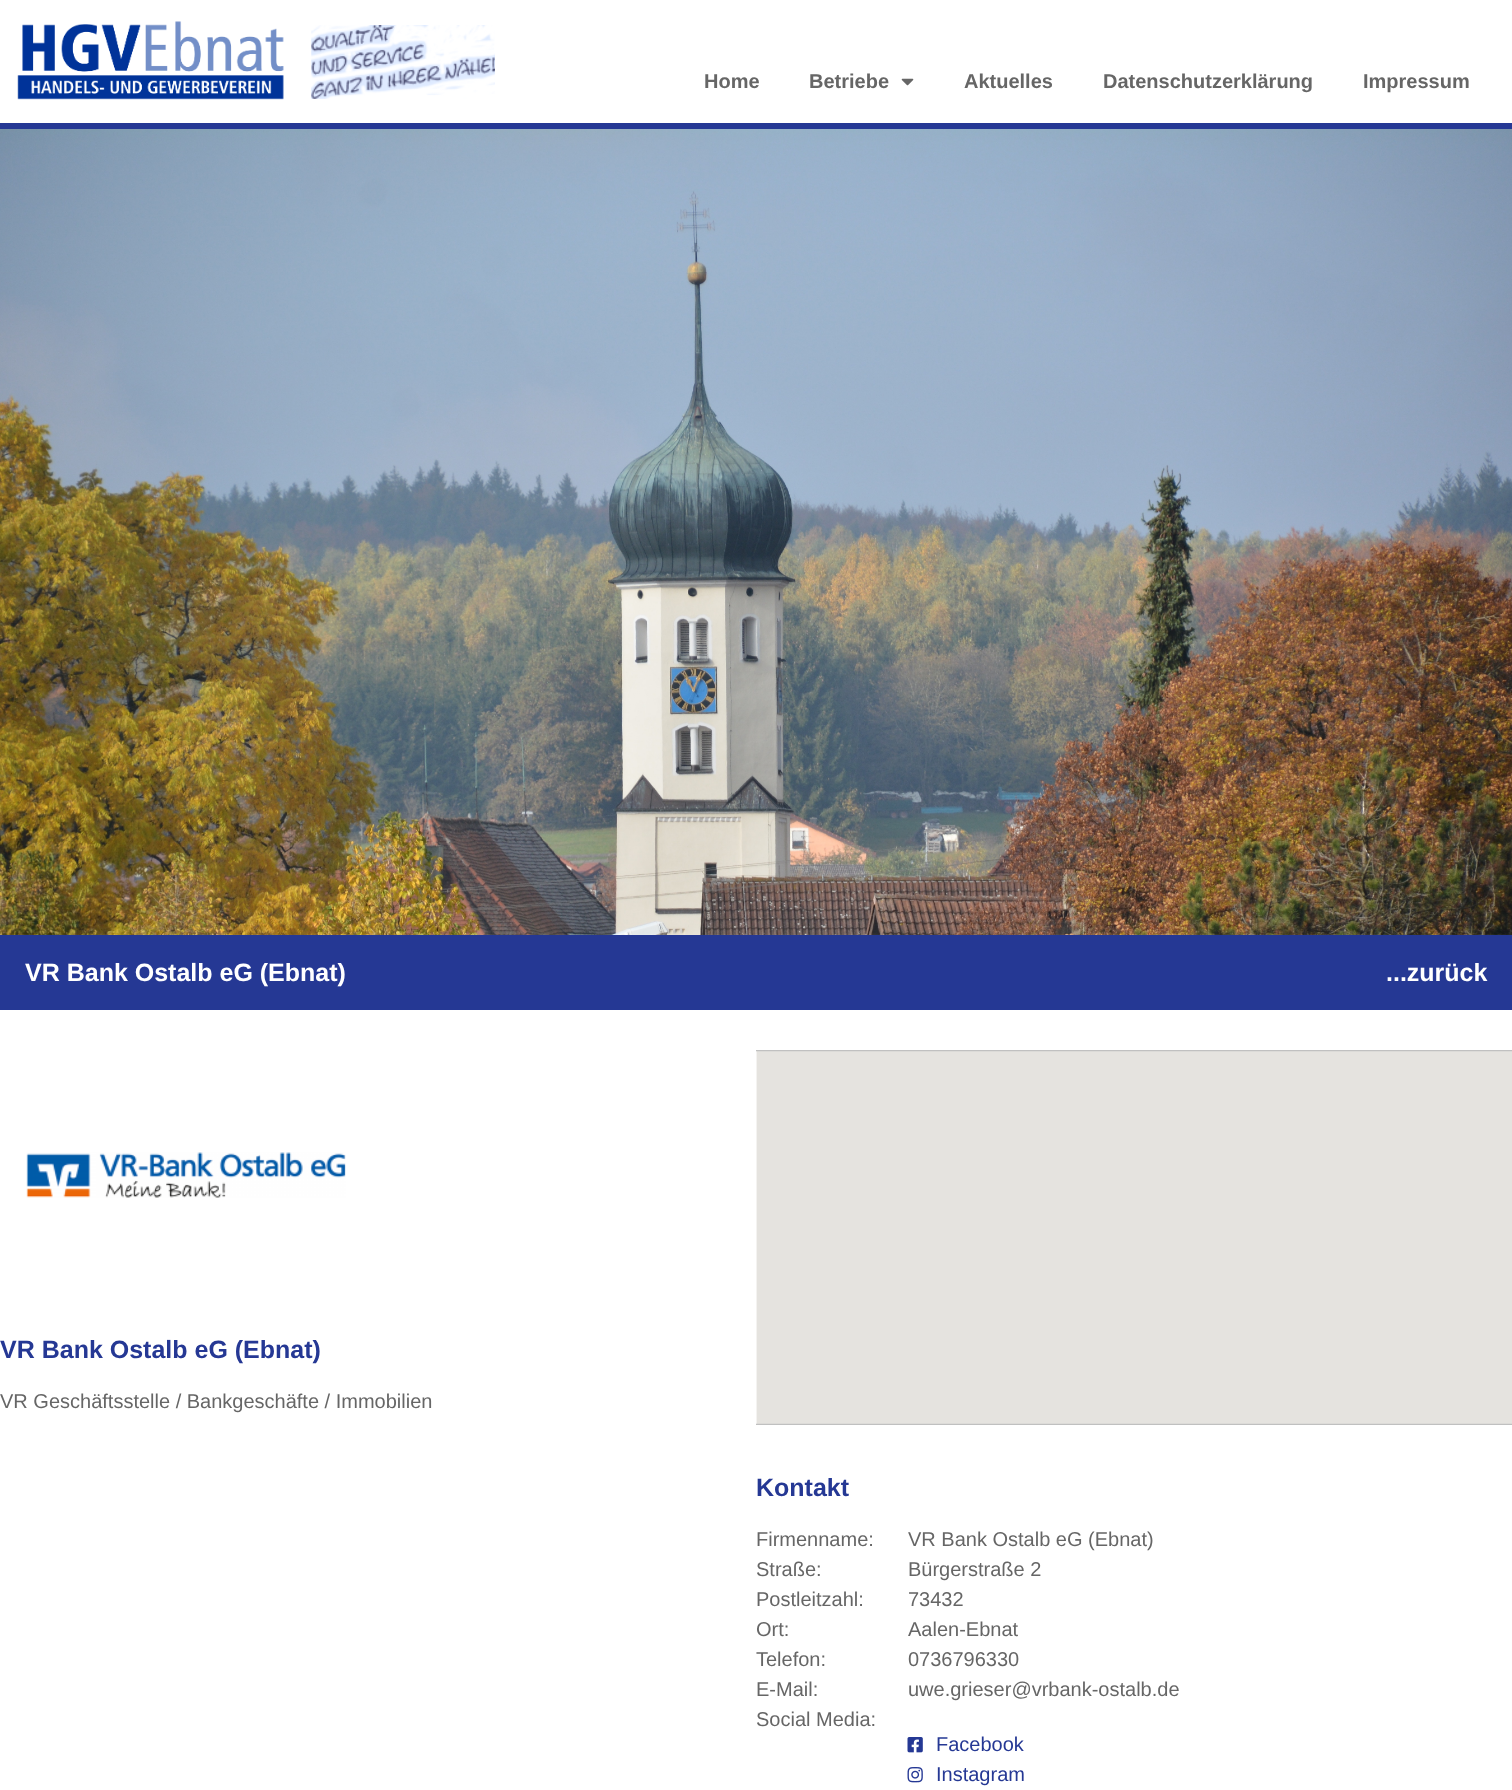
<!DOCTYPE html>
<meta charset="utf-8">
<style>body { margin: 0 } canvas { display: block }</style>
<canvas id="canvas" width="1512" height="1790"></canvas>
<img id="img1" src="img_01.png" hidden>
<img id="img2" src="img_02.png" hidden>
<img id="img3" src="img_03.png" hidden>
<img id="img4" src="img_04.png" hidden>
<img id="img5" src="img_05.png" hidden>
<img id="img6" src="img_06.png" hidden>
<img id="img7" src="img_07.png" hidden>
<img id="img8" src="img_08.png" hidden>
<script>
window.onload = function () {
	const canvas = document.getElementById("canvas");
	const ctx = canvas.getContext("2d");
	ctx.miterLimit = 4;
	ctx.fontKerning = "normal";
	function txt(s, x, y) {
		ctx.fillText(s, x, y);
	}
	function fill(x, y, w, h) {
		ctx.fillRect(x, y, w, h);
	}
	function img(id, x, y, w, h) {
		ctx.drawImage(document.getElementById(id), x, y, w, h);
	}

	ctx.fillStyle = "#FFFFFF";
	fill(0, 0, 1512, 1790);
	ctx.fillStyle = "#253894";
	fill(0, 123, 1512, 6);
	img("img1", 17, 21, 267, 79);
	img("img2", 311, 25, 184, 74);
	img("img3", 901, 78, 13, 8);
	img("img4", 0, 129, 1512, 806);
	fill(0, 935, 1512, 75);
	img("img5", 26, 1152, 320, 46);
	img("img6", 756, 1050, 756, 375);
	img("img7", 907, 1737, 16, 16);
	img("img8", 907, 1767, 16, 16);
	ctx.font = "bold 20px Liberation Sans";
	ctx.fillStyle = "#666666";
	txt("Home", 704, 88);
	txt("Betriebe", 809, 88);
	txt("Aktuelles", 964, 88);
	txt("Datenschutzerklärung", 1103, 88);
	txt("Impressum", 1363, 88);
	ctx.font = "bold 25px Liberation Sans";
	ctx.fillStyle = "#FFFFFF";
	txt("VR Bank Ostalb eG (Ebnat)", 25, 981);
	txt("...zurück", 1386, 981);
	ctx.fillStyle = "#253894";
	txt("VR Bank Ostalb eG (Ebnat)", 0, 1358);
	ctx.font = "20px Liberation Sans";
	ctx.fillStyle = "#666666";
	txt("VR Geschäftsstelle / Bankgeschäfte / Immobilien", 0, 1408);
	ctx.font = "bold 25px Liberation Sans";
	ctx.fillStyle = "#253894";
	txt("Kontakt", 756, 1496);
	ctx.font = "20px Liberation Sans";
	ctx.fillStyle = "#666666";
	txt("Firmenname:", 756, 1546);
	txt("Straße:", 756, 1576);
	txt("Postleitzahl:", 756, 1606);
	txt("Ort:", 756, 1636);
	txt("Telefon:", 756, 1666);
	txt("E-Mail:", 756, 1696);
	txt("Social Media:", 756, 1726);
	txt("VR Bank Ostalb eG (Ebnat)", 908, 1546);
	txt("Bürgerstraße 2", 908, 1576);
	txt("73432", 908, 1606);
	txt("Aalen-Ebnat", 908, 1636);
	txt("0736796330", 908, 1666);
	txt("uwe.grieser@vrbank-ostalb.de", 908, 1696);
	ctx.fillStyle = "#253894";
	txt("Facebook", 936, 1751);
	txt("Instagram", 936, 1781);
};
</script>
